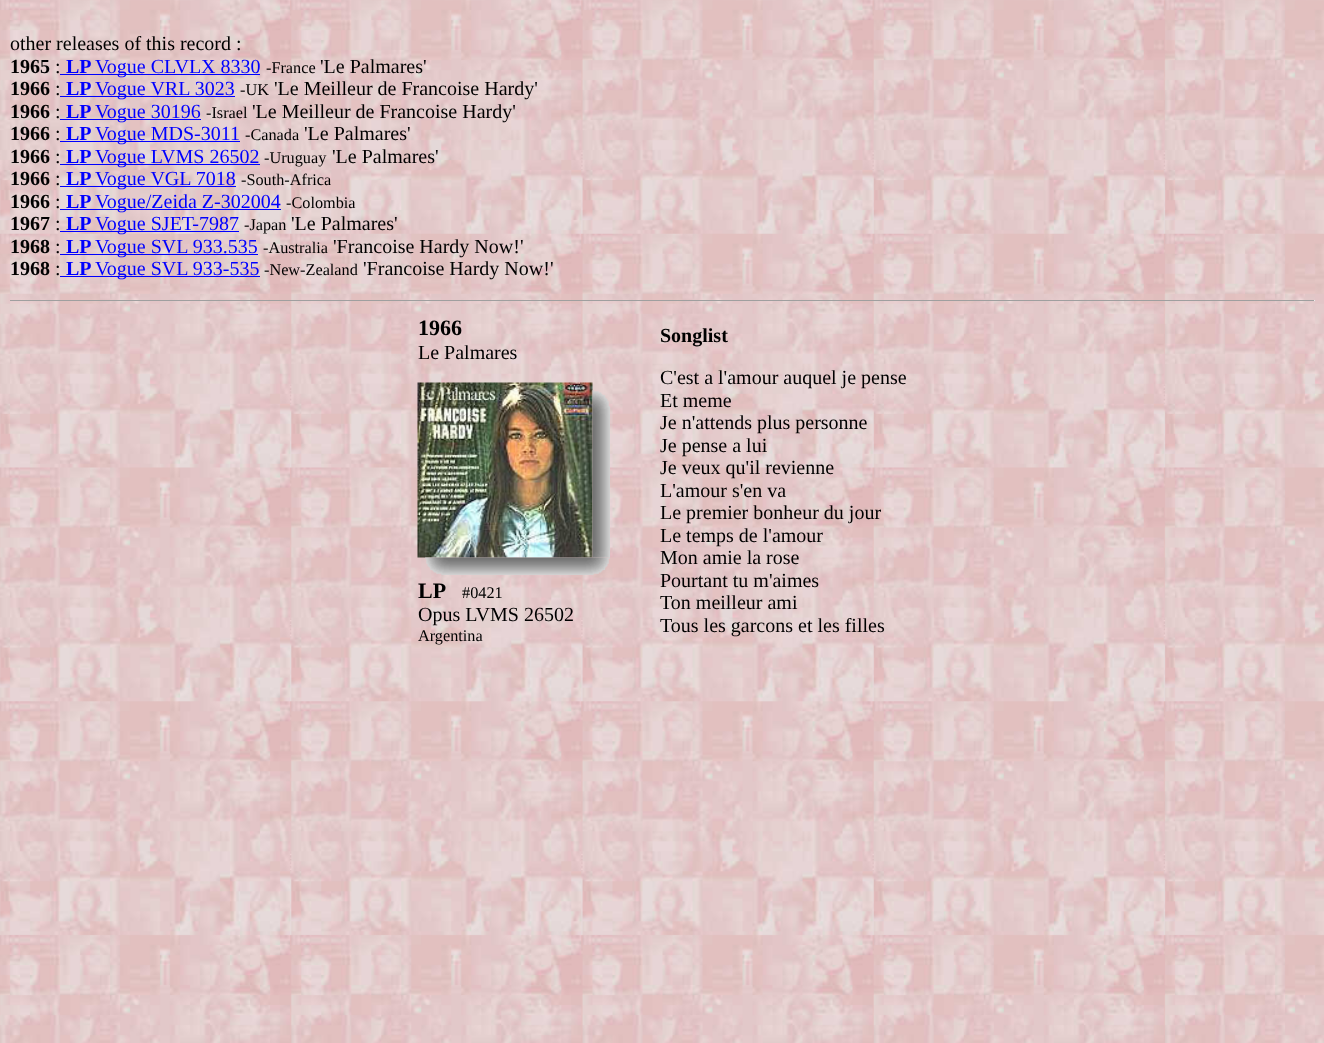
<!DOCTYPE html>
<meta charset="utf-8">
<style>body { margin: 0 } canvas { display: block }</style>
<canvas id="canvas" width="1324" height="1043"></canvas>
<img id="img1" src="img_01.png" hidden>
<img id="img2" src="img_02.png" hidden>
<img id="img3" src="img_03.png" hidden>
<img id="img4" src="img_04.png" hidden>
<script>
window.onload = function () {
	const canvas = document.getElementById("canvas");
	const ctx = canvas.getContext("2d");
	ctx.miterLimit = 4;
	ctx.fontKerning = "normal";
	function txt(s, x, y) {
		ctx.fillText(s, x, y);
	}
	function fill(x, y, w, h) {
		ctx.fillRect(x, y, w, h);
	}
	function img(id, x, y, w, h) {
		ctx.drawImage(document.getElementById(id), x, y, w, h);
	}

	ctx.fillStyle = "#FFFFFF";
	fill(0, 0, 1324, 1043);
	img("img1", 0, 0, 1324, 1043);
	ctx.fillStyle = "#0000FF";
	fill(60, 74, 200, 1);
	fill(60, 96, 175, 1);
	fill(60, 119, 141, 1);
	fill(60, 141, 180, 1);
	fill(60, 164, 200, 1);
	fill(60, 186, 176, 1);
	fill(60, 209, 221, 1);
	fill(60, 231, 179, 1);
	fill(60, 254, 198, 1);
	fill(60, 276, 200, 1);
	ctx.fillStyle = "#9F9F9F";
	fill(10, 300, 1305, 1);
	ctx.fillStyle = "#EEEEEE";
	fill(1314, 300, 1, 1);
	img("img2", 417, 382, 176, 176);
	img("img3", 592, 390, 18, 168);
	img("img4", 425, 557, 185, 18);
	ctx.font = "20px Liberation Serif";
	ctx.fillStyle = "#000000";
	txt("other releases of this record :", 10, 50);
	ctx.font = "bold 20px Liberation Serif";
	txt("1965", 10, 73);
	ctx.font = "20px Liberation Serif";
	txt(":", 55, 73);
	ctx.font = "bold 20px Liberation Serif";
	ctx.fillStyle = "#0000FF";
	txt("LP", 66, 73);
	ctx.font = "20px Liberation Serif";
	txt("Vogue CLVLX 8330", 95, 73);
	ctx.font = "16.25px Liberation Serif";
	ctx.fillStyle = "#000000";
	txt("-France", 266, 73);
	ctx.font = "20px Liberation Serif";
	txt("'Le Palmares'", 320, 73);
	ctx.font = "bold 20px Liberation Serif";
	txt("1966", 10, 95);
	ctx.font = "20px Liberation Serif";
	txt(":", 55, 95);
	ctx.font = "bold 20px Liberation Serif";
	ctx.fillStyle = "#0000FF";
	txt("LP", 66, 95);
	ctx.font = "20px Liberation Serif";
	txt("Vogue VRL 3023", 95, 95);
	ctx.font = "16.25px Liberation Serif";
	ctx.fillStyle = "#000000";
	txt("-UK", 240, 95);
	ctx.font = "20px Liberation Serif";
	txt("'Le Meilleur de Francoise Hardy'", 274, 95);
	ctx.font = "bold 20px Liberation Serif";
	txt("1966", 10, 118);
	ctx.font = "20px Liberation Serif";
	txt(":", 55, 118);
	ctx.font = "bold 20px Liberation Serif";
	ctx.fillStyle = "#0000FF";
	txt("LP", 66, 118);
	ctx.font = "20px Liberation Serif";
	txt("Vogue 30196", 95, 118);
	ctx.font = "16.25px Liberation Serif";
	ctx.fillStyle = "#000000";
	txt("-Israel", 206, 118);
	ctx.font = "20px Liberation Serif";
	txt("'Le Meilleur de Francoise Hardy'", 252, 118);
	ctx.font = "bold 20px Liberation Serif";
	txt("1966", 10, 140);
	ctx.font = "20px Liberation Serif";
	txt(":", 55, 140);
	ctx.font = "bold 20px Liberation Serif";
	ctx.fillStyle = "#0000FF";
	txt("LP", 66, 140);
	ctx.font = "20px Liberation Serif";
	txt("Vogue MDS-3011", 95, 140);
	ctx.font = "16.25px Liberation Serif";
	ctx.fillStyle = "#000000";
	txt("-Canada", 245, 140);
	ctx.font = "20px Liberation Serif";
	txt("'Le Palmares'", 304, 140);
	ctx.font = "bold 20px Liberation Serif";
	txt("1966", 10, 163);
	ctx.font = "20px Liberation Serif";
	txt(":", 55, 163);
	ctx.font = "bold 20px Liberation Serif";
	ctx.fillStyle = "#0000FF";
	txt("LP", 66, 163);
	ctx.font = "20px Liberation Serif";
	txt("Vogue LVMS 26502", 95, 163);
	ctx.font = "16.25px Liberation Serif";
	ctx.fillStyle = "#000000";
	txt("-Uruguay", 264, 163);
	ctx.font = "20px Liberation Serif";
	txt("'Le Palmares'", 332, 163);
	ctx.font = "bold 20px Liberation Serif";
	txt("1966", 10, 185);
	ctx.font = "20px Liberation Serif";
	txt(":", 55, 185);
	ctx.font = "bold 20px Liberation Serif";
	ctx.fillStyle = "#0000FF";
	txt("LP", 66, 185);
	ctx.font = "20px Liberation Serif";
	txt("Vogue VGL 7018", 95, 185);
	ctx.font = "16.25px Liberation Serif";
	ctx.fillStyle = "#000000";
	txt("-South-Africa", 241, 185);
	ctx.font = "bold 20px Liberation Serif";
	txt("1966", 10, 208);
	ctx.font = "20px Liberation Serif";
	txt(":", 55, 208);
	ctx.font = "bold 20px Liberation Serif";
	ctx.fillStyle = "#0000FF";
	txt("LP", 66, 208);
	ctx.font = "20px Liberation Serif";
	txt("Vogue/Zeida Z-302004", 95, 208);
	ctx.font = "16.25px Liberation Serif";
	ctx.fillStyle = "#000000";
	txt("-Colombia", 286, 208);
	ctx.font = "bold 20px Liberation Serif";
	txt("1967", 10, 230);
	ctx.font = "20px Liberation Serif";
	txt(":", 55, 230);
	ctx.font = "bold 20px Liberation Serif";
	ctx.fillStyle = "#0000FF";
	txt("LP", 66, 230);
	ctx.font = "20px Liberation Serif";
	txt("Vogue SJET-7987", 95, 230);
	ctx.font = "16.25px Liberation Serif";
	ctx.fillStyle = "#000000";
	txt("-Japan", 244, 230);
	ctx.font = "20px Liberation Serif";
	txt("'Le Palmares'", 291, 230);
	ctx.font = "bold 20px Liberation Serif";
	txt("1968", 10, 253);
	ctx.font = "20px Liberation Serif";
	txt(":", 55, 253);
	ctx.font = "bold 20px Liberation Serif";
	ctx.fillStyle = "#0000FF";
	txt("LP", 66, 253);
	ctx.font = "20px Liberation Serif";
	txt("Vogue SVL 933.535", 95, 253);
	ctx.font = "16.25px Liberation Serif";
	ctx.fillStyle = "#000000";
	txt("-Australia", 263, 253);
	ctx.font = "20px Liberation Serif";
	txt("'Francoise Hardy Now!'", 333, 253);
	ctx.font = "bold 20px Liberation Serif";
	txt("1968", 10, 275);
	ctx.font = "20px Liberation Serif";
	txt(":", 55, 275);
	ctx.font = "bold 20px Liberation Serif";
	ctx.fillStyle = "#0000FF";
	txt("LP", 66, 275);
	ctx.font = "20px Liberation Serif";
	txt("Vogue SVL 933-535", 95, 275);
	ctx.font = "16.25px Liberation Serif";
	ctx.fillStyle = "#000000";
	txt("-New-Zealand", 264, 275);
	ctx.font = "20px Liberation Serif";
	txt("'Francoise Hardy Now!'", 363, 275);
	ctx.font = "bold 22px Liberation Serif";
	txt("1966", 418, 335);
	ctx.font = "20px Liberation Serif";
	txt("Le Palmares", 418, 359);
	ctx.font = "bold 22px Liberation Serif";
	txt("LP", 418, 598);
	ctx.font = "16.25px Liberation Serif";
	txt("#0421", 462, 598);
	ctx.font = "20px Liberation Serif";
	txt("Opus LVMS 26502", 418, 621);
	ctx.font = "16.25px Liberation Serif";
	txt("Argentina", 418, 641);
	ctx.font = "bold 20px Liberation Serif";
	txt("Songlist", 660, 342);
	ctx.font = "20px Liberation Serif";
	txt("C'est a l'amour auquel je pense", 660, 384);
	txt("Et meme", 660, 407);
	txt("Je n'attends plus personne", 660, 429);
	txt("Je pense a lui", 660, 452);
	txt("Je veux qu'il revienne", 660, 474);
	txt("L'amour s'en va", 660, 497);
	txt("Le premier bonheur du jour", 660, 519);
	txt("Le temps de l'amour", 660, 542);
	txt("Mon amie la rose", 660, 564);
	txt("Pourtant tu m'aimes", 660, 587);
	txt("Ton meilleur ami", 660, 609);
	txt("Tous les garcons et les filles", 660, 632);
};
</script>
